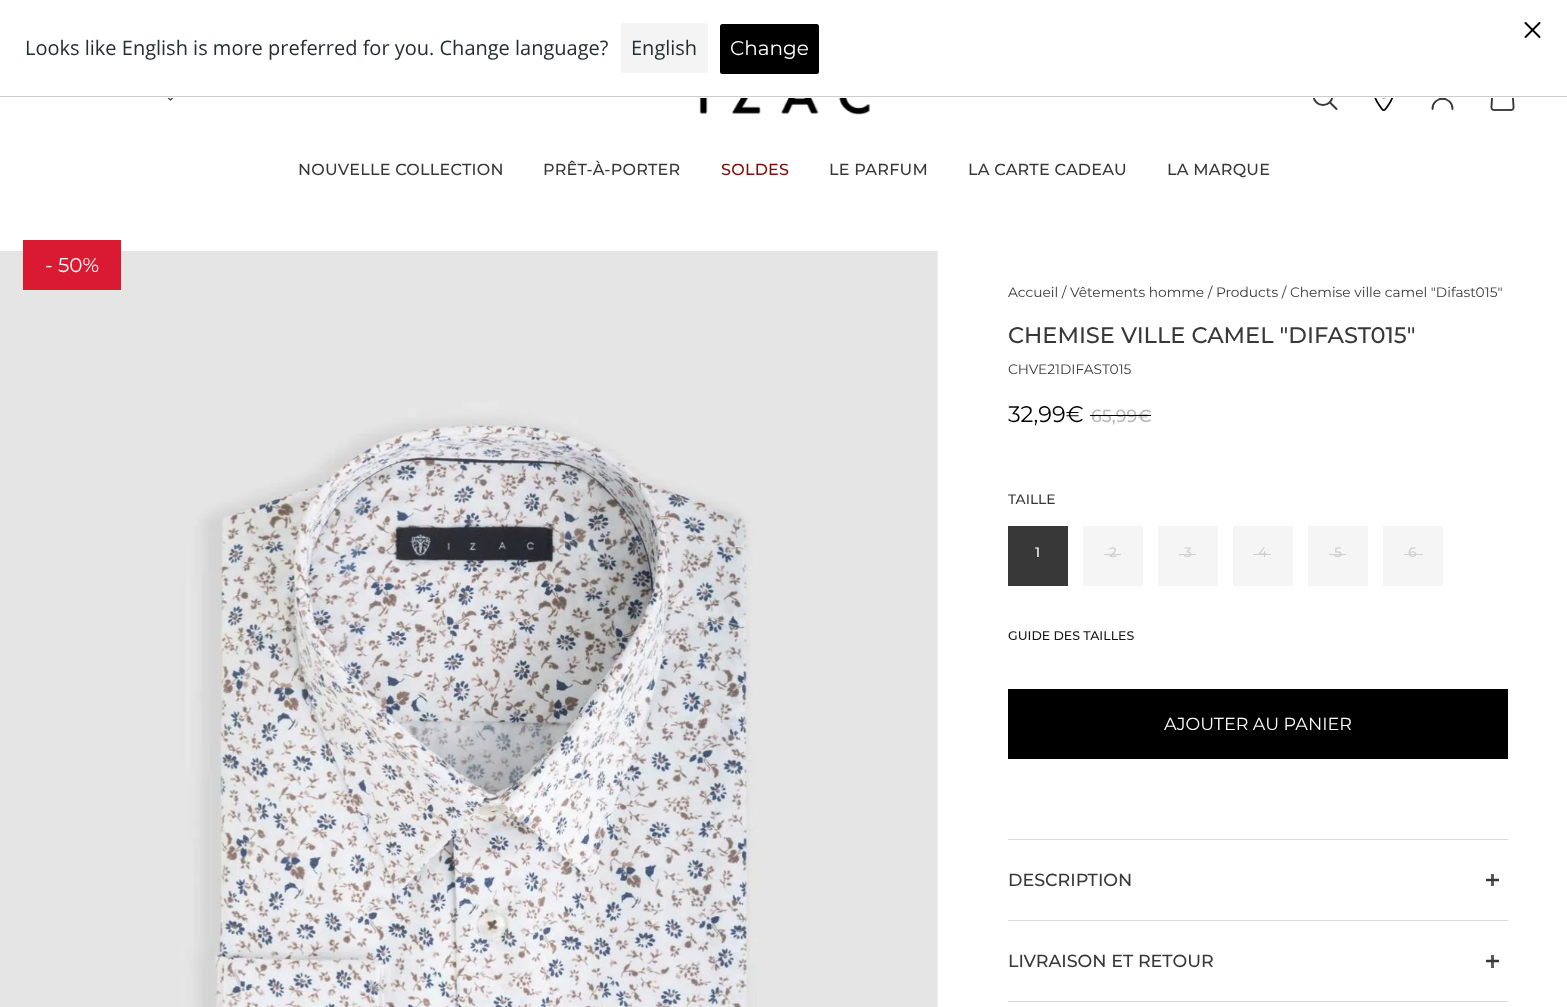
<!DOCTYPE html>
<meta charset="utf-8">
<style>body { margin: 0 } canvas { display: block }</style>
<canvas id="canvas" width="1567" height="1007"></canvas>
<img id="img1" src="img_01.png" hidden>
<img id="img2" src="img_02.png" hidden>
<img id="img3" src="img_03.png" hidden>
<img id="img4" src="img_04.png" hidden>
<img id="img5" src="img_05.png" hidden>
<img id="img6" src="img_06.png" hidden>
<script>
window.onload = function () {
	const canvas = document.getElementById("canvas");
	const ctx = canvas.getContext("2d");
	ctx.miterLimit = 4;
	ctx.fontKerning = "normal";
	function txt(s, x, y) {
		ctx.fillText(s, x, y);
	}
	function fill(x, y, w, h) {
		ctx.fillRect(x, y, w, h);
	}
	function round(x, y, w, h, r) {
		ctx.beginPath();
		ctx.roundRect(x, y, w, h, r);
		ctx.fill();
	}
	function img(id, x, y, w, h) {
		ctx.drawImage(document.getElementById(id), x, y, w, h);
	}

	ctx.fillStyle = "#FFFFFF";
	fill(0, 0, 1567, 1007);
	ctx.beginPath();
	ctx.moveTo(176, 94.5);
	ctx.lineTo(170.5, 100);
	ctx.lineTo(164.5, 94.5);
	ctx.strokeStyle = "#383838";
	ctx.lineWidth = 1.2;
	ctx.stroke();
	ctx.beginPath();
	ctx.arc(1323, 95.5, 9.5, 0, Math.PI * 2);
	ctx.lineWidth = 1.9;
	ctx.stroke();
	ctx.beginPath();
	ctx.arc(1442.5, 92.5, 6, 0, Math.PI * 2);
	ctx.stroke();
	ctx.beginPath();
	ctx.moveTo(1452.5, 109);
	ctx.bezierCurveTo(1452.5, 95.5, 1432.5, 95.5, 1432.5, 109);
	ctx.lineCap = "round";
	ctx.lineJoin = "round";
	ctx.stroke();
	fill(164, 85, 1286, 13);
	ctx.fillStyle = "#CCCCCC";
	fill(0, 96, 1567, 1);
	img("img1", 1524, 22, 17, 16);
	ctx.fillStyle = "#F4F4F4";
	round(621, 23, 87, 50, 2.5);
	ctx.fillStyle = "#000000";
	round(720, 24, 99, 50, 2.5);
	img("img2", 699, 98, 171, 17);
	ctx.beginPath();
	ctx.moveTo(1330.5, 103);
	ctx.lineTo(1336.5, 109);
	ctx.stroke();
	img("img3", 1374, 98, 19, 13);
	img("img4", 1490, 98, 25, 13);
	img("img5", 699, 98, 171, 17);
	img("img6", 0, 251, 938, 756);
	ctx.fillStyle = "#DA1A32";
	fill(23, 240, 98, 50);
	ctx.fillStyle = "#383838";
	fill(1008, 526, 60, 60);
	ctx.fillStyle = "#F5F5F5";
	fill(1083, 526, 60, 60);
	ctx.fillStyle = "#CFCFCF";
	fill(1104, 554, 17, 1);
	ctx.fillStyle = "#F5F5F5";
	fill(1158, 526, 60, 60);
	ctx.fillStyle = "#CFCFCF";
	fill(1179, 554, 17, 1);
	ctx.fillStyle = "#F5F5F5";
	fill(1233, 526, 60, 60);
	ctx.fillStyle = "#CFCFCF";
	fill(1253, 554, 18, 1);
	ctx.fillStyle = "#F5F5F5";
	fill(1308, 526, 60, 60);
	ctx.fillStyle = "#CFCFCF";
	fill(1329, 554, 17, 1);
	ctx.fillStyle = "#F5F5F5";
	fill(1383, 526, 60, 60);
	ctx.fillStyle = "#CFCFCF";
	fill(1404, 554, 19, 1);
	ctx.fillStyle = "#000000";
	fill(1008, 689, 500, 70);
	ctx.fillStyle = "#D9D9D9";
	fill(1008, 839, 500, 1);
	fill(1008, 920, 500, 1);
	ctx.beginPath();
	ctx.moveTo(1486, 880);
	ctx.lineTo(1499, 880);
	ctx.lineWidth = 2.5;
	ctx.lineCap = "butt";
	ctx.lineJoin = "miter";
	ctx.stroke();
	ctx.fillStyle = "rgba(56, 56, 56, 0.83)";
	fill(1491, 874, 3, 12);
	ctx.fillStyle = "#D9D9D9";
	fill(1008, 1001, 500, 1);
	ctx.beginPath();
	ctx.moveTo(1486, 961);
	ctx.lineTo(1499, 961);
	ctx.stroke();
	ctx.fillStyle = "rgba(56, 56, 56, 0.83)";
	fill(1491, 955, 3, 13);
	ctx.font = "20px Open Sans";
	ctx.fillStyle = "#272E31";
	txt("Looks like English is more preferred for you. Change language?", 25, 55);
	txt("English", 631, 55);
	ctx.font = "20px Montserrat";
	ctx.fillStyle = "#FFFFFF";
	txt("Change", 730, 55);
	ctx.letterSpacing = "0.25px";
	ctx.font = "500 16px Montserrat";
	ctx.fillStyle = "#383838";
	txt("NOUVELLE COLLECTION", 298, 175);
	txt("PRÊT-À-PORTER", 543, 175);
	ctx.fillStyle = "#800B07";
	txt("SOLDES", 721, 175);
	ctx.fillStyle = "#383838";
	txt("LE PARFUM", 829, 175);
	txt("LA CARTE CADEAU", 968, 175);
	txt("LA MARQUE", 1167, 175);
	ctx.letterSpacing = "0px";
	ctx.font = "20px Montserrat";
	ctx.fillStyle = "#FFFFFF";
	txt("- 50%", 45, 272);
	ctx.font = "13.75px Montserrat";
	ctx.fillStyle = "#383838";
	txt("Accueil / Vêtements homme / Products / Chemise ville camel \"Difast015\"", 1008, 297);
	ctx.font = "500 22.5px Montserrat";
	txt("CHEMISE VILLE CAMEL \"DIFAST015\"", 1008, 343);
	ctx.font = "13.75px Montserrat";
	txt("CHVE21DIFAST015", 1008, 374);
	ctx.font = "22.5px Montserrat";
	ctx.fillStyle = "#000000";
	txt("32,99€", 1008, 422);
	ctx.font = "500 17.5px Montserrat";
	ctx.fillStyle = "#B9B9B9";
	txt("65,99€", 1091, 422);
	ctx.fillStyle = "#000000";
	fill(1090, 415, 61, 1);
	ctx.font = "500 13.75px Montserrat";
	ctx.fillStyle = "#383838";
	txt("TAILLE", 1008, 504);
	ctx.fillStyle = "#FFFFFF";
	txt("1", 1035, 557);
	ctx.fillStyle = "#CFCFCF";
	txt("2", 1109, 557);
	txt("3", 1184, 557);
	txt("4", 1258, 557);
	txt("5", 1334, 557);
	txt("6", 1408, 557);
	ctx.font = "500 12.5px Montserrat";
	ctx.fillStyle = "#141416";
	txt("GUIDE DES TAILLES", 1008, 640);
	ctx.font = "17.5px Montserrat";
	ctx.fillStyle = "#FFFFFF";
	txt("AJOUTER AU PANIER", 1164, 730);
	ctx.font = "500 17.5px Montserrat";
	ctx.fillStyle = "#383838";
	txt("DESCRIPTION", 1008, 886);
	txt("LIVRAISON ET RETOUR", 1008, 967);
};
</script>
